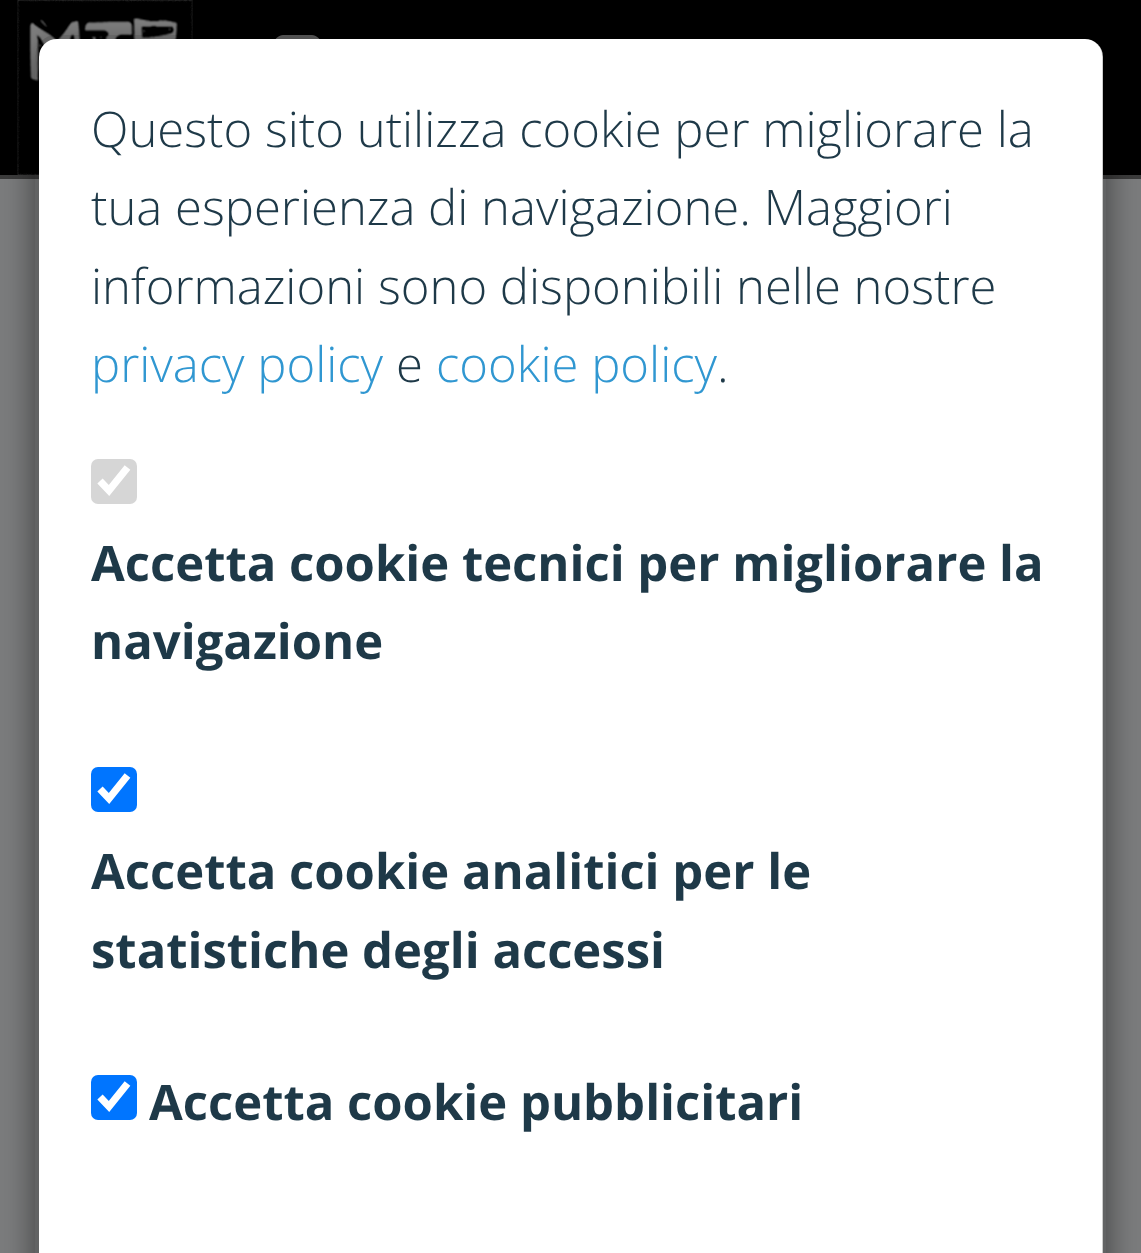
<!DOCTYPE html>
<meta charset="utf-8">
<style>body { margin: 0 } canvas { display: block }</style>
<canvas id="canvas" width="1141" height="1253"></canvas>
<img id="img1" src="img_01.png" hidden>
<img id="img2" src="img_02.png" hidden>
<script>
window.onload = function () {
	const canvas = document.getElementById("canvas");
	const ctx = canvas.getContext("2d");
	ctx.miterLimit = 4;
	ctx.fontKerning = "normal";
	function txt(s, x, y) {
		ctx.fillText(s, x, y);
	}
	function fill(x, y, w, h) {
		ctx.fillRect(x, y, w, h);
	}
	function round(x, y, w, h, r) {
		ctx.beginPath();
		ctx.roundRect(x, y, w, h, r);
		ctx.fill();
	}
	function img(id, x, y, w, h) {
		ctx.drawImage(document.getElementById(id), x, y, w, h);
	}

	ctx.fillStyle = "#7B7C7D";
	fill(0, 0, 1141, 1253);
	ctx.fillStyle = "#000000";
	fill(0, 0, 1141, 175);
	ctx.fillStyle = "#3C3C3C";
	fill(0, 175, 1141, 4);
	img("img1", 17, 0, 176, 175);
	img("img2", 275, 35, 45, 4);
	ctx.save();
	ctx.beginPath();
	ctx.moveTo(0, 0);
	ctx.lineTo(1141, 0);
	ctx.lineTo(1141, 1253);
	ctx.lineTo(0, 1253);
	ctx.closePath();
	ctx.moveTo(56, 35);
	ctx.lineTo(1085, 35);
	ctx.bezierCurveTo(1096.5, 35, 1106, 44.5, 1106, 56);
	ctx.lineTo(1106, 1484);
	ctx.bezierCurveTo(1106, 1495.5, 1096.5, 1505, 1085, 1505);
	ctx.lineTo(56, 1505);
	ctx.bezierCurveTo(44.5, 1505, 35, 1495.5, 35, 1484);
	ctx.lineTo(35, 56);
	ctx.bezierCurveTo(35, 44.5, 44.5, 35, 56, 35);
	ctx.closePath();
	ctx.clip("evenodd");
	ctx.fillStyle = "rgba(0, 0, 0, 0.5)";
	ctx.filter = "blur(16px)";
	ctx.beginPath();
	ctx.roundRect(35, 46, 1071, 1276, 21);
	ctx.fill();
	ctx.filter = "none";
	ctx.restore();
	ctx.fillStyle = "#FFFFFF";
	ctx.beginPath();
	ctx.roundRect(39, 39, 1064, 1214, [18, 18, 0, 0]);
	ctx.fill();
	ctx.beginPath();
	ctx.roundRect(37, 37, 1067, 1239, 19);
	ctx.strokeStyle = "rgba(0, 0, 0, 0.2)";
	ctx.lineWidth = 4;
	ctx.stroke();
	ctx.fillStyle = "#D6D6D6";
	round(91, 459, 46, 45, 7);
	ctx.beginPath();
	ctx.moveTo(100, 481);
	ctx.lineTo(109, 490.5);
	ctx.lineTo(127.5, 467.5);
	ctx.strokeStyle = "#FFFFFF";
	ctx.lineWidth = 7.3;
	ctx.stroke();
	ctx.fillStyle = "#0075FF";
	round(91, 767, 46, 45, 7);
	ctx.beginPath();
	ctx.moveTo(100, 789);
	ctx.lineTo(109, 798.5);
	ctx.lineTo(127.5, 775.5);
	ctx.stroke();
	round(91, 1075, 46, 45, 7);
	ctx.beginPath();
	ctx.moveTo(100, 1097);
	ctx.lineTo(109, 1106.5);
	ctx.lineTo(127.5, 1083.5);
	ctx.stroke();
	ctx.font = "300 49px Open Sans";
	ctx.fillStyle = "#1E3948";
	txt("Questo sito utilizza cookie per migliorare la", 91, 147);
	txt("tua esperienza di navigazione. Maggiori", 91, 225);
	txt("informazioni sono disponibili nelle nostre", 91, 304);
	ctx.fillStyle = "#3097D1";
	txt("privacy policy", 91, 382);
	ctx.fillStyle = "#1E3948";
	txt("e", 396, 382);
	ctx.fillStyle = "#3097D1";
	txt("cookie policy", 436, 382);
	ctx.fillStyle = "#1E3948";
	txt(".", 717, 382);
	ctx.font = "bold 49px Open Sans";
	txt("Accetta cookie tecnici per migliorare la", 91, 581);
	txt("navigazione", 91, 659);
	txt("Accetta cookie analitici per le", 91, 889);
	txt("statistiche degli accessi", 91, 968);
	txt("Accetta cookie pubblicitari", 149, 1120);
};
</script>
